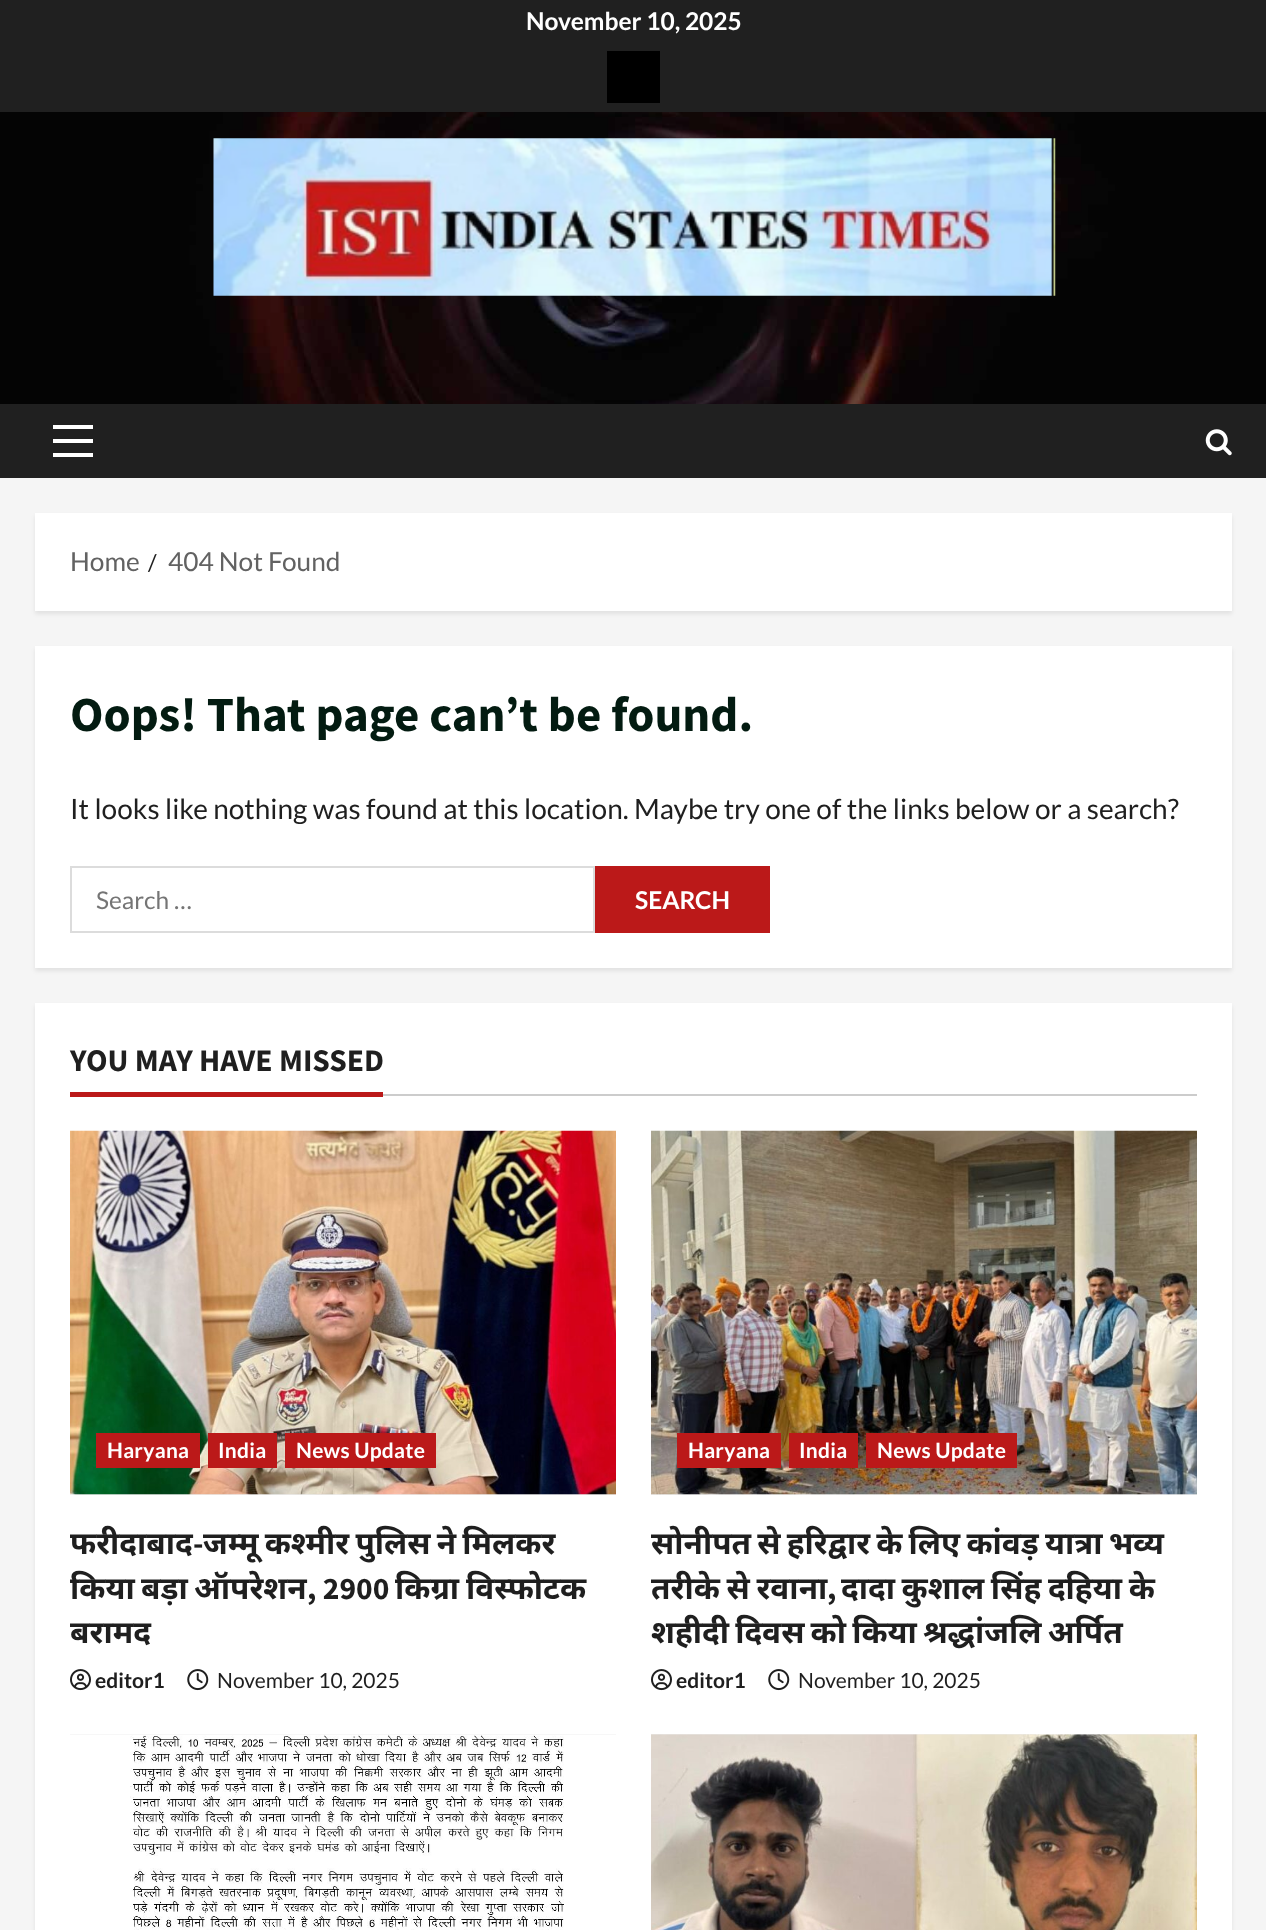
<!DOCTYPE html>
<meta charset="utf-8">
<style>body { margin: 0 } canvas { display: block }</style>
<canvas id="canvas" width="1266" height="1930"></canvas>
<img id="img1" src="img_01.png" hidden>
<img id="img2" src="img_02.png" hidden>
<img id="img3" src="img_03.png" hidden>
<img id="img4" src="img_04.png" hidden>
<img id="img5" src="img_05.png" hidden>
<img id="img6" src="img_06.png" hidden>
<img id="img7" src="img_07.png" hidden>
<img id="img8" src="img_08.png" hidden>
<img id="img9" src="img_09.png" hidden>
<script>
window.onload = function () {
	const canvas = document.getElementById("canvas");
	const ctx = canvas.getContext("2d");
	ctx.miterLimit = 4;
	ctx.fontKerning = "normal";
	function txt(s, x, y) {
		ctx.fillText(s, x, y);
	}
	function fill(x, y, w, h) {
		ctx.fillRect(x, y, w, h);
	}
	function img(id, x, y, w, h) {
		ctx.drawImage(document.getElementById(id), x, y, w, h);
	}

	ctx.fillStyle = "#F5F5F5";
	fill(0, 0, 1266, 1930);
	ctx.fillStyle = "#202020";
	fill(0, 0, 1266, 112);
	ctx.fillStyle = "#000000";
	fill(607, 51, 53, 52);
	img("img1", 0, 112, 1266, 292);
	img("img2", 213, 138, 843, 158);
	ctx.fillStyle = "#202020";
	fill(0, 404, 1266, 74);
	ctx.fillStyle = "#FFFFFF";
	fill(53, 439, 40, 4);
	fill(53, 425, 40, 4);
	fill(53, 453, 40, 4);
	img("img3", 1205, 429, 27, 27);
	ctx.fillStyle = "rgba(0, 0, 0, 0.08)";
	ctx.filter = "blur(2px)";
	ctx.beginPath();
	ctx.rect(35, 516, 1197, 98);
	ctx.fill();
	ctx.filter = "none";
	ctx.fillStyle = "#FFFFFF";
	fill(35, 513, 1197, 98);
	ctx.fillStyle = "rgba(0, 0, 0, 0.08)";
	ctx.filter = "blur(2px)";
	ctx.beginPath();
	ctx.rect(35, 649, 1197, 322);
	ctx.fill();
	ctx.filter = "none";
	ctx.fillStyle = "#FFFFFF";
	fill(35, 646, 1197, 322);
	ctx.strokeStyle = "#DCDCDC";
	ctx.lineWidth = 2;
	ctx.strokeRect(71, 867, 523, 65);
	ctx.fillStyle = "#BB1919";
	fill(595, 866, 175, 67);
	ctx.fillStyle = "rgba(0, 0, 0, 0.08)";
	ctx.filter = "blur(2px)";
	ctx.beginPath();
	ctx.rect(35, 1006, 1197, 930);
	ctx.fill();
	ctx.filter = "none";
	ctx.fillStyle = "#FFFFFF";
	fill(35, 1003, 1197, 927);
	ctx.fillStyle = "#CCCCCC";
	fill(383, 1094, 814, 2);
	ctx.fillStyle = "#BB1919";
	fill(70, 1092, 313, 5);
	ctx.fillStyle = "#ECECEC";
	fill(70, 1494, 546, 1);
	img("img4", 70, 1130, 546, 365);
	ctx.fillStyle = "#BB1919";
	fill(96, 1433, 104, 35);
	fill(208, 1433, 69, 35);
	fill(285, 1433, 151, 35);
	img("img5", 70, 1669, 21, 22);
	img("img6", 187, 1669, 22, 22);
	ctx.fillStyle = "#ECECEC";
	fill(651, 1494, 546, 1);
	img("img7", 651, 1130, 546, 365);
	ctx.fillStyle = "#BB1919";
	fill(677, 1433, 104, 35);
	fill(789, 1433, 69, 35);
	fill(866, 1433, 151, 35);
	img("img5", 651, 1669, 21, 22);
	img("img6", 768, 1669, 22, 22);
	ctx.fillStyle = "#ECECEC";
	fill(70, 1734, 546, 1);
	img("img8", 70, 1734, 546, 196);
	fill(651, 1734, 546, 1);
	img("img9", 651, 1734, 546, 196);
	ctx.font = "bold 24.5px Lato";
	ctx.fillStyle = "#FFFFFF";
	txt("November 10, 2025", 526, 30);
	ctx.font = "26.25px Lato";
	ctx.fillStyle = "#626262";
	txt("Home", 70, 571);
	ctx.font = "23px Lato";
	ctx.fillStyle = "#1F1F1F";
	txt("/", 148, 571);
	ctx.font = "26.25px Lato";
	ctx.fillStyle = "#626262";
	txt("404 Not Found", 168, 571);
	ctx.font = "bold 49px Source Sans Pro";
	ctx.fillStyle = "#031B11";
	txt("Oops! That page can’t be found.", 70, 731);
	ctx.font = "28px Lato";
	ctx.fillStyle = "#1F1F1F";
	txt("It looks like nothing was found at this location. Maybe try one of the links below or a search?", 70, 819);
	ctx.font = "24.5px Lato";
	ctx.fillStyle = "#757575";
	txt("Search …", 96, 909);
	ctx.font = "bold 24.5px Lato";
	ctx.fillStyle = "#FFFFFF";
	txt("SEARCH", 635, 909);
	ctx.font = "bold 31.5px Source Sans Pro";
	ctx.fillStyle = "#1F1F1F";
	txt("YOU MAY HAVE MISSED", 70, 1071);
	ctx.letterSpacing = "0.25px";
	ctx.font = "bold 21px Lato";
	ctx.fillStyle = "#FFFFFF";
	txt("Haryana", 107, 1458);
	txt("India", 218, 1458);
	txt("News Update", 296, 1458);
	ctx.letterSpacing = "0px";
	ctx.font = "bold 31.5px Noto Sans";
	ctx.fillStyle = "#1F1F1F";
	txt("फरीदाबाद", 70, 1554);
	ctx.font = "bold 31.5px Source Sans Pro";
	txt("-", 193, 1554);
	ctx.wordSpacing = "-2px";
	ctx.font = "bold 31.5px Noto Sans";
	txt("जम्मू कश्मीर पुलिस ने मिलकर", 203, 1554);
	ctx.wordSpacing = "0px";
	txt("किया", 70, 1599);
	txt("बड़ा", 141, 1599);
	txt("ऑपरेशन", 194, 1599);
	ctx.font = "bold 31.5px Source Sans Pro";
	txt(", 2900", 307, 1599);
	ctx.font = "bold 31.5px Noto Sans";
	txt("किग्रा", 395, 1599);
	txt("विस्फोटक", 466, 1599);
	txt("बरामद", 70, 1643);
	ctx.font = "bold 21px Lato";
	txt("editor1", 95, 1688);
	ctx.font = "21px Lato";
	txt("November 10, 2025", 217, 1688);
	ctx.letterSpacing = "0.25px";
	ctx.font = "bold 21px Lato";
	ctx.fillStyle = "#FFFFFF";
	txt("Haryana", 688, 1458);
	txt("India", 799, 1458);
	txt("News Update", 877, 1458);
	ctx.letterSpacing = "0px";
	ctx.wordSpacing = "-2px";
	ctx.font = "bold 31.5px Noto Sans";
	ctx.fillStyle = "#1F1F1F";
	txt("सोनीपत से हरिद्वार के लिए कांवड़ यात्रा भव्य", 651, 1554);
	ctx.wordSpacing = "-1.5px";
	txt("तरीके से रवाना", 651, 1599);
	ctx.wordSpacing = "0px";
	ctx.font = "bold 31.5px Source Sans Pro";
	txt(",", 827, 1599);
	ctx.wordSpacing = "-1.5px";
	ctx.font = "bold 31.5px Noto Sans";
	txt("दादा कुशाल सिंह दहिया के", 841, 1599);
	ctx.wordSpacing = "-2px";
	txt("शहीदी दिवस को किया श्रद्धांजलि अर्पित", 651, 1643);
	ctx.wordSpacing = "0px";
	ctx.font = "bold 21px Lato";
	txt("editor1", 676, 1688);
	ctx.font = "21px Lato";
	txt("November 10, 2025", 798, 1688);
};
</script>
